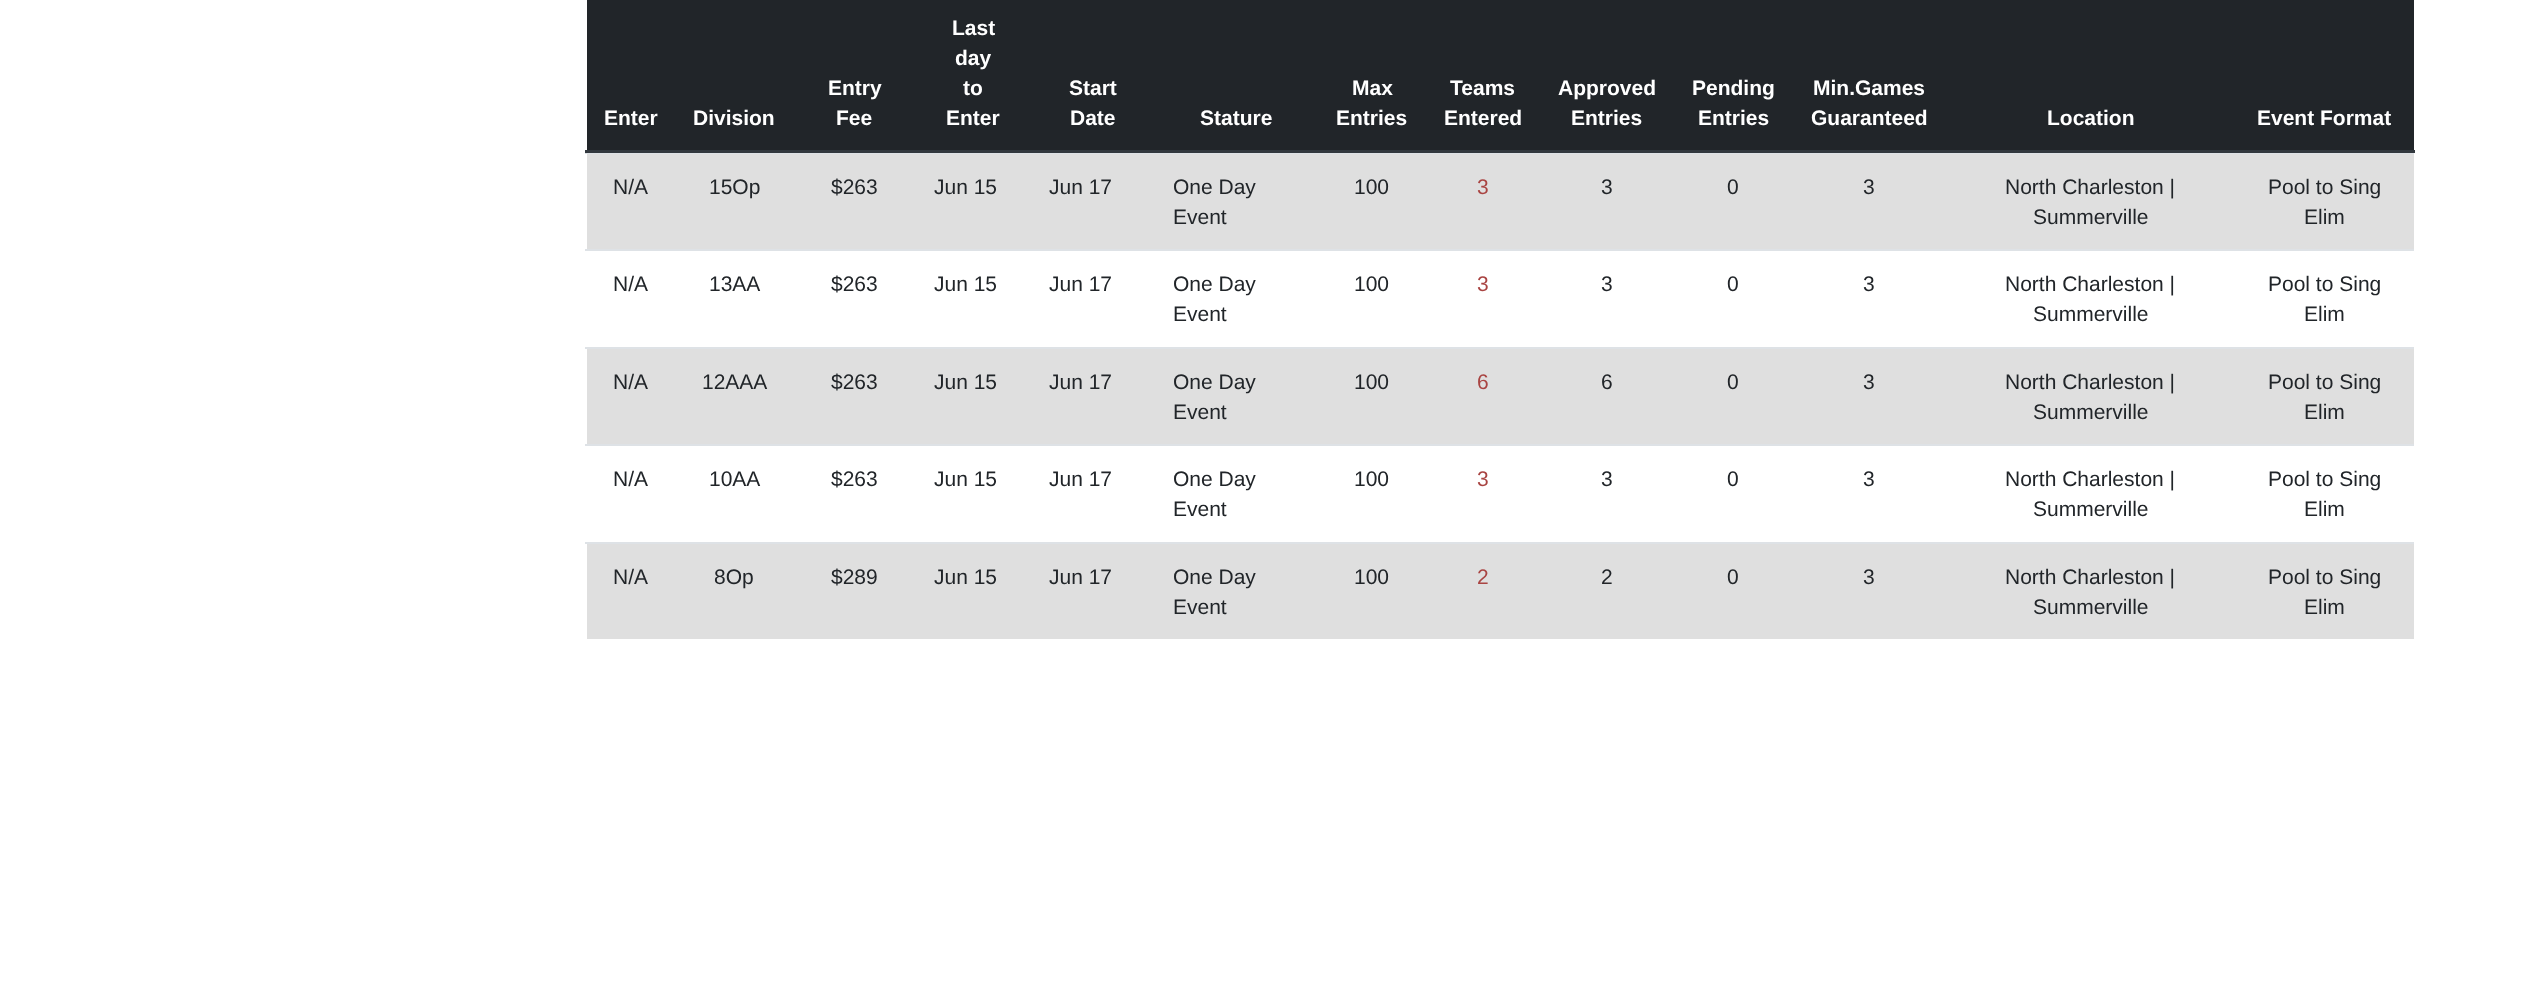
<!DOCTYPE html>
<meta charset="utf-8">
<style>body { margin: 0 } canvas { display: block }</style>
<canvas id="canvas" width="2533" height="982"></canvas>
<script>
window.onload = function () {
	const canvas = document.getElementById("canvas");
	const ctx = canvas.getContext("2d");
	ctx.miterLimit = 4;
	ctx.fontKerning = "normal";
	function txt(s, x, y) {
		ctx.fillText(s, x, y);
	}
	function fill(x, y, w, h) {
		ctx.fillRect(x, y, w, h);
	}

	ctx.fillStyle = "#FFFFFF";
	fill(0, 0, 2533, 982);
	ctx.fillStyle = "#212529";
	fill(587, 0, 1827, 150);
	ctx.fillStyle = "#32383E";
	fill(585, 150, 1830, 3);
	ctx.fillStyle = "#DFDFDF";
	fill(587, 154, 1827, 95);
	ctx.fillStyle = "#DEE2E6";
	fill(585, 153, 1829, 1);
	fill(585, 249, 1829, 2);
	ctx.fillStyle = "#DFDFDF";
	fill(587, 349, 1827, 95);
	ctx.fillStyle = "#DEE2E6";
	fill(585, 347, 1829, 2);
	fill(585, 444, 1829, 2);
	ctx.fillStyle = "#DFDFDF";
	fill(587, 544, 1827, 95);
	ctx.fillStyle = "#DEE2E6";
	fill(585, 542, 1829, 2);
	ctx.font = "bold 21px Liberation Sans";
	ctx.fillStyle = "#FFFFFF";
	txt("Enter", 604, 125);
	txt("Division", 693, 125);
	txt("Entry", 828, 95);
	txt("Fee", 836, 125);
	txt("Last", 952, 35);
	txt("day", 955, 65);
	txt("to", 963, 95);
	txt("Enter", 946, 125);
	txt("Start", 1069, 95);
	txt("Date", 1070, 125);
	txt("Stature", 1200, 125);
	txt("Max", 1352, 95);
	txt("Entries", 1336, 125);
	txt("Teams", 1450, 95);
	txt("Entered", 1444, 125);
	txt("Approved", 1558, 95);
	txt("Entries", 1571, 125);
	txt("Pending", 1692, 95);
	txt("Entries", 1698, 125);
	txt("Min.Games", 1813, 95);
	txt("Guaranteed", 1811, 125);
	txt("Location", 2047, 125);
	txt("Event Format", 2257, 125);
	ctx.font = "21px Liberation Sans";
	ctx.fillStyle = "#212529";
	txt("N/A", 613, 194);
	txt("15Op", 709, 194);
	txt("$263", 831, 194);
	txt("Jun 15", 934, 194);
	txt("Jun 17", 1049, 194);
	txt("One Day", 1173, 194);
	txt("Event", 1173, 224);
	txt("100", 1354, 194);
	ctx.fillStyle = "#A94442";
	txt("3", 1477, 194);
	ctx.fillStyle = "#212529";
	txt("3", 1601, 194);
	txt("0", 1727, 194);
	txt("3", 1863, 194);
	txt("North Charleston |", 2005, 194);
	txt("Summerville", 2033, 224);
	txt("Pool to Sing", 2268, 194);
	txt("Elim", 2304, 224);
	txt("N/A", 613, 291);
	txt("13AA", 709, 291);
	txt("$263", 831, 291);
	txt("Jun 15", 934, 291);
	txt("Jun 17", 1049, 291);
	txt("One Day", 1173, 291);
	txt("Event", 1173, 321);
	txt("100", 1354, 291);
	ctx.fillStyle = "#A94442";
	txt("3", 1477, 291);
	ctx.fillStyle = "#212529";
	txt("3", 1601, 291);
	txt("0", 1727, 291);
	txt("3", 1863, 291);
	txt("North Charleston |", 2005, 291);
	txt("Summerville", 2033, 321);
	txt("Pool to Sing", 2268, 291);
	txt("Elim", 2304, 321);
	txt("N/A", 613, 389);
	txt("12AAA", 702, 389);
	txt("$263", 831, 389);
	txt("Jun 15", 934, 389);
	txt("Jun 17", 1049, 389);
	txt("One Day", 1173, 389);
	txt("Event", 1173, 419);
	txt("100", 1354, 389);
	ctx.fillStyle = "#A94442";
	txt("6", 1477, 389);
	ctx.fillStyle = "#212529";
	txt("6", 1601, 389);
	txt("0", 1727, 389);
	txt("3", 1863, 389);
	txt("North Charleston |", 2005, 389);
	txt("Summerville", 2033, 419);
	txt("Pool to Sing", 2268, 389);
	txt("Elim", 2304, 419);
	txt("N/A", 613, 486);
	txt("10AA", 709, 486);
	txt("$263", 831, 486);
	txt("Jun 15", 934, 486);
	txt("Jun 17", 1049, 486);
	txt("One Day", 1173, 486);
	txt("Event", 1173, 516);
	txt("100", 1354, 486);
	ctx.fillStyle = "#A94442";
	txt("3", 1477, 486);
	ctx.fillStyle = "#212529";
	txt("3", 1601, 486);
	txt("0", 1727, 486);
	txt("3", 1863, 486);
	txt("North Charleston |", 2005, 486);
	txt("Summerville", 2033, 516);
	txt("Pool to Sing", 2268, 486);
	txt("Elim", 2304, 516);
	txt("N/A", 613, 584);
	txt("8Op", 714, 584);
	txt("$289", 831, 584);
	txt("Jun 15", 934, 584);
	txt("Jun 17", 1049, 584);
	txt("One Day", 1173, 584);
	txt("Event", 1173, 614);
	txt("100", 1354, 584);
	ctx.fillStyle = "#A94442";
	txt("2", 1477, 584);
	ctx.fillStyle = "#212529";
	txt("2", 1601, 584);
	txt("0", 1727, 584);
	txt("3", 1863, 584);
	txt("North Charleston |", 2005, 584);
	txt("Summerville", 2033, 614);
	txt("Pool to Sing", 2268, 584);
	txt("Elim", 2304, 614);
};
</script>
